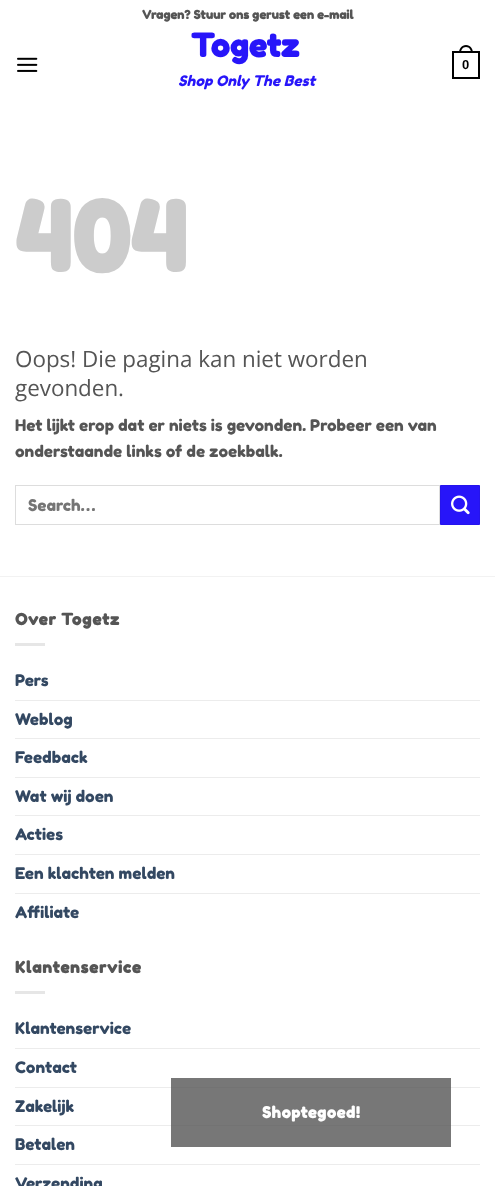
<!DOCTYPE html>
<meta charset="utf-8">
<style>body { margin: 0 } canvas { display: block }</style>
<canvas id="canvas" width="495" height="1186"></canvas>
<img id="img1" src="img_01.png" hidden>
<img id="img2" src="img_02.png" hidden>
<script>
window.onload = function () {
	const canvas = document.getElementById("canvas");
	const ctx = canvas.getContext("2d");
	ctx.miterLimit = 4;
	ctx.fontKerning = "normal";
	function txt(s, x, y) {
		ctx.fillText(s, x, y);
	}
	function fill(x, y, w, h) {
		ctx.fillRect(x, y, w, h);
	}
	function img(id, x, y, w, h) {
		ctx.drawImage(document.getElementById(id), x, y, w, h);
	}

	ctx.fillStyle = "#FFFFFF";
	fill(0, 0, 495, 1186);
	ctx.fillStyle = "#777777";
	fill(171, 1078, 280, 69);
	img("img1", 17, 57, 21, 15);
	ctx.strokeStyle = "#000000";
	ctx.lineWidth = 2;
	ctx.strokeRect(453, 52, 26, 26);
	ctx.fillStyle = "#000000";
	ctx.beginPath();
	ctx.moveTo(466, 45);
	ctx.bezierCurveTo(470.5, 45, 473, 49, 473, 53);
	ctx.lineTo(459, 53);
	ctx.bezierCurveTo(459, 49, 461.5, 45, 466, 45);
	ctx.closePath();
	ctx.moveTo(466, 47);
	ctx.bezierCurveTo(469.5, 47, 471, 50, 471, 53);
	ctx.lineTo(461, 53);
	ctx.bezierCurveTo(461, 50, 462.5, 47, 466, 47);
	ctx.closePath();
	ctx.fill("evenodd");
	ctx.strokeStyle = "#DDDDDD";
	ctx.lineWidth = 1;
	ctx.strokeRect(15.5, 485.5, 424, 39);
	ctx.fillStyle = "#2715F9";
	ctx.beginPath();
	ctx.rect(440.5, 485.5, 39, 39);
	ctx.fill();
	ctx.strokeStyle = "#2514ED";
	ctx.stroke();
	img("img2", 451, 495, 19, 20);
	ctx.fillStyle = "#F2F2F2";
	fill(0, 576, 495, 1);
	ctx.fillStyle = "#E6E6E6";
	fill(15, 643, 30, 3);
	ctx.fillStyle = "#ECECEC";
	fill(15, 700, 465, 1);
	fill(15, 738, 465, 1);
	fill(15, 777, 465, 1);
	fill(15, 815, 465, 1);
	fill(15, 854, 465, 1);
	fill(15, 893, 465, 1);
	ctx.fillStyle = "#E6E6E6";
	fill(15, 991, 30, 3);
	ctx.fillStyle = "#ECECEC";
	fill(15, 1048, 465, 1);
	fill(15, 1087, 465, 1);
	ctx.fillStyle = "#737373";
	fill(171, 1087, 280, 1);
	ctx.fillStyle = "#ECECEC";
	fill(15, 1125, 465, 1);
	ctx.fillStyle = "#737373";
	fill(171, 1125, 280, 1);
	ctx.fillStyle = "#ECECEC";
	fill(15, 1164, 465, 1);
	ctx.font = "bold 12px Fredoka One";
	ctx.fillStyle = "#555555";
	txt("Vragen? Stuur ons gerust een e-mail", 142, 19);
	ctx.font = "bold 32px Fredoka One";
	ctx.fillStyle = "#2715F9";
	txt("Togetz", 191, 57);
	ctx.font = "italic 14.5px Fredoka One";
	txt("Shop Only The Best", 178, 86);
	ctx.font = "bold 13px Liberation Sans";
	ctx.fillStyle = "#000000";
	txt("0", 462, 69);
	ctx.font = "bold 96px Fredoka One";
	ctx.fillStyle = "#CCCCCC";
	txt("404", 15, 272);
	ctx.font = "22.4px Open Sans";
	ctx.fillStyle = "#555555";
	txt("Oops! Die pagina kan niet worden", 15, 367);
	txt("gevonden.", 15, 396);
	ctx.font = "16px Fredoka One";
	txt("Het lijkt erop dat er niets is gevonden. Probeer een van", 15, 431);
	txt("onderstaande links of de zoekbalk.", 15, 457);
	ctx.fillStyle = "#757575";
	txt("Search…", 28, 511);
	ctx.letterSpacing = "0.75px";
	ctx.font = "bold 16px Fredoka One";
	ctx.fillStyle = "#555555";
	txt("Over Togetz", 15, 625);
	ctx.letterSpacing = "0px";
	ctx.font = "16px Fredoka One";
	ctx.fillStyle = "#334862";
	txt("Pers", 15, 686);
	txt("Weblog", 15, 725);
	txt("Feedback", 15, 763);
	txt("Wat wij doen", 15, 802);
	txt("Acties", 15, 840);
	txt("Een klachten melden", 15, 879);
	txt("Affiliate", 15, 918);
	ctx.letterSpacing = "0.75px";
	ctx.font = "bold 16px Fredoka One";
	ctx.fillStyle = "#555555";
	txt("Klantenservice", 15, 973);
	ctx.letterSpacing = "0px";
	ctx.font = "16px Fredoka One";
	ctx.fillStyle = "#334862";
	txt("Klantenservice", 15, 1034);
	txt("Contact", 15, 1073);
	txt("Zakelijk", 15, 1112);
	txt("Betalen", 15, 1150);
	txt("Verzending", 15, 1189);
	ctx.letterSpacing = "0.5px";
	ctx.font = "bold 15.5px Fredoka One";
	ctx.fillStyle = "#FFFFFF";
	txt("Shoptegoed!", 262, 1118);
};
</script>
